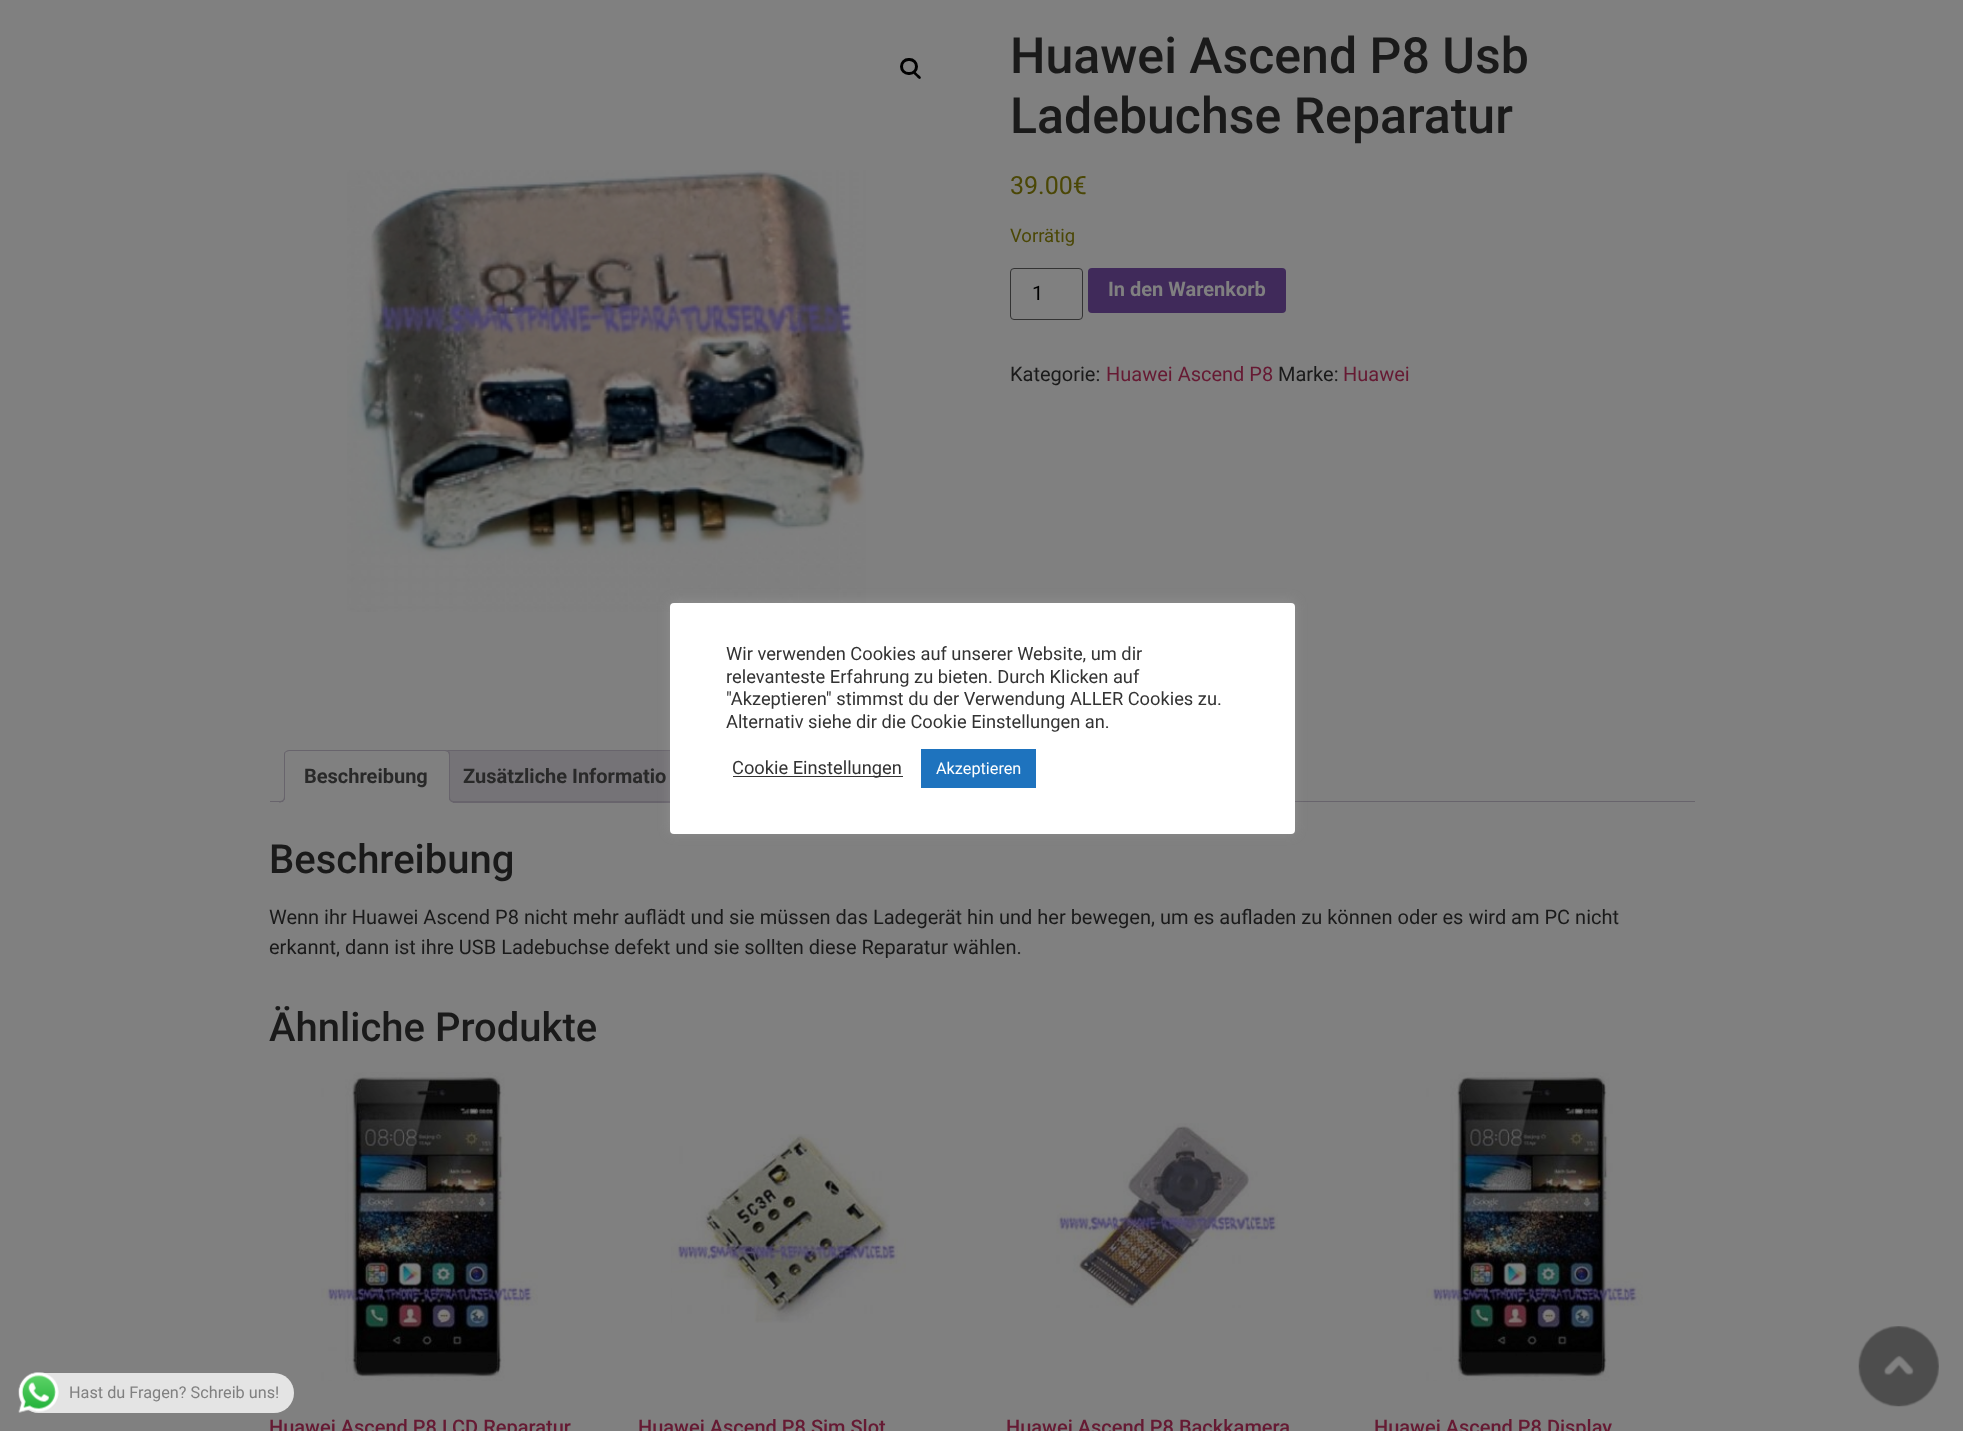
<!DOCTYPE html>
<meta charset="utf-8">
<style>body { margin: 0 } canvas { display: block }</style>
<canvas id="canvas" width="1963" height="1431"></canvas>
<img id="img1" src="img_01.png" hidden>
<img id="img2" src="img_02.png" hidden>
<img id="img3" src="img_03.png" hidden>
<img id="img4" src="img_04.png" hidden>
<img id="img5" src="img_05.png" hidden>
<img id="img6" src="img_06.png" hidden>
<script>
window.onload = function () {
	const canvas = document.getElementById("canvas");
	const ctx = canvas.getContext("2d");
	ctx.miterLimit = 4;
	ctx.fontKerning = "normal";
	function txt(s, x, y) {
		ctx.fillText(s, x, y);
	}
	function fill(x, y, w, h) {
		ctx.fillRect(x, y, w, h);
	}
	function round(x, y, w, h, r) {
		ctx.beginPath();
		ctx.roundRect(x, y, w, h, r);
		ctx.fill();
	}
	function img(id, x, y, w, h) {
		ctx.drawImage(document.getElementById(id), x, y, w, h);
	}

	ctx.fillStyle = "#808080";
	fill(0, 0, 1963, 1431);
	ctx.beginPath();
	ctx.roundRect(901.5, 59.5, 15, 14, 7);
	ctx.strokeStyle = "#000000";
	ctx.lineWidth = 3;
	ctx.stroke();
	ctx.fillStyle = "#000000";
	ctx.beginPath();
	ctx.moveTo(913.5, 71.5);
	ctx.bezierCurveTo(915, 70, 917, 73.5, 918, 74.5);
	ctx.bezierCurveTo(919, 75, 922, 77.5, 920.5, 78.5);
	ctx.bezierCurveTo(919, 80, 917, 77, 916, 76);
	ctx.bezierCurveTo(915.5, 75.5, 912, 73, 913.5, 71.5);
	ctx.closePath();
	ctx.fill();
	img("img1", 347, 170, 519, 442);
	ctx.beginPath();
	ctx.roundRect(1010.5, 268.5, 72, 51, 3.5);
	ctx.strokeStyle = "#333333";
	ctx.lineWidth = 1;
	ctx.stroke();
	ctx.fillStyle = "#402A5A";
	round(1088, 268, 198, 45, 4);
	ctx.fillStyle = "#757377";
	ctx.beginPath();
	ctx.roundRect(443.5, 750.5, 277, 52, [4.5, 4.5, 0, 0]);
	ctx.fill();
	ctx.strokeStyle = "#68646C";
	ctx.stroke();
	ctx.fillStyle = "#68646C";
	fill(270, 801, 1425, 1);
	ctx.fillStyle = "#808080";
	ctx.beginPath();
	ctx.roundRect(284, 750, 166, 53, [5, 5, 0, 0]);
	ctx.fill();
	ctx.fillStyle = "#68646C";
	ctx.beginPath();
	ctx.moveTo(289, 750);
	ctx.bezierCurveTo(287, 750, 286, 751, 285, 752);
	ctx.lineTo(286, 752);
	ctx.lineTo(289, 751);
	ctx.lineTo(445, 751);
	ctx.lineTo(448, 752);
	ctx.lineTo(449, 751);
	ctx.bezierCurveTo(448, 750, 446, 750, 445, 750);
	ctx.closePath();
	ctx.fill();
	ctx.beginPath();
	ctx.moveTo(450, 802);
	ctx.lineTo(450, 755);
	ctx.bezierCurveTo(450, 754, 450, 752, 449, 751);
	ctx.lineTo(448, 752);
	ctx.bezierCurveTo(448, 753, 449, 754, 449, 755);
	ctx.lineTo(449, 801);
	ctx.lineTo(448, 801);
	ctx.closePath();
	ctx.fill();
	ctx.fillStyle = "#808080";
	ctx.beginPath();
	ctx.moveTo(450, 802);
	ctx.lineTo(284, 802);
	ctx.lineTo(285, 801);
	ctx.lineTo(448, 801);
	ctx.closePath();
	ctx.fill();
	ctx.fillStyle = "#68646C";
	ctx.beginPath();
	ctx.moveTo(285, 752);
	ctx.bezierCurveTo(284, 752, 284, 754, 284, 755);
	ctx.lineTo(284, 802);
	ctx.lineTo(285, 801);
	ctx.lineTo(285, 755);
	ctx.bezierCurveTo(285, 754, 285, 753, 286, 752);
	ctx.closePath();
	ctx.fill();
	ctx.save();
	ctx.beginPath();
	ctx.rect(270, 750, 1425, 53);
	ctx.clip();
	ctx.fillStyle = "#808080";
	ctx.beginPath();
	ctx.moveTo(281, 802.5);
	ctx.lineTo(281, 805);
	ctx.bezierCurveTo(285.5, 805, 288, 804, 288, 799);
	ctx.lineTo(285, 799);
	ctx.bezierCurveTo(284, 800.5, 283, 802, 281, 802.5);
	ctx.closePath();
	ctx.fill();
	ctx.restore();
	ctx.beginPath();
	ctx.moveTo(279, 796);
	ctx.lineTo(285, 796);
	ctx.bezierCurveTo(285, 800.5, 283, 802.5, 279, 802.5);
	ctx.closePath();
	ctx.moveTo(279, 796);
	ctx.lineTo(284, 796);
	ctx.bezierCurveTo(284, 800, 282.5, 801, 279, 801);
	ctx.closePath();
	ctx.fill("evenodd");
	ctx.save();
	ctx.beginPath();
	ctx.rect(270, 750, 1425, 53);
	ctx.clip();
	ctx.fillStyle = "#808080";
	ctx.beginPath();
	ctx.moveTo(446, 799);
	ctx.bezierCurveTo(446, 804, 448.5, 805, 453, 805);
	ctx.lineTo(453, 802.5);
	ctx.bezierCurveTo(451, 802, 449.5, 801, 449, 799);
	ctx.closePath();
	ctx.fill();
	ctx.restore();
	ctx.beginPath();
	ctx.moveTo(449, 796);
	ctx.lineTo(455, 796);
	ctx.lineTo(455, 802.5);
	ctx.bezierCurveTo(452, 802.5, 449, 801, 449, 797.5);
	ctx.closePath();
	ctx.moveTo(450, 796);
	ctx.lineTo(455, 796);
	ctx.lineTo(455, 801);
	ctx.bezierCurveTo(452.5, 801, 450, 800.5, 450, 797.5);
	ctx.closePath();
	ctx.fill("evenodd");
	img("img2", 321, 1072, 217, 309);
	img("img3", 671, 1134, 235, 189);
	img("img4", 1056, 1123, 222, 185);
	img("img2", 1426, 1072, 217, 309);
	ctx.fillStyle = "rgba(172, 171, 171, 0.3)";
	ctx.filter = "blur(6px)";
	ctx.beginPath();
	ctx.roundRect(670, 601, 625, 232, 4);
	ctx.fill();
	ctx.filter = "none";
	ctx.fillStyle = "#FFFFFF";
	round(670, 603, 625, 231, 4);
	ctx.fillStyle = "#333333";
	fill(733, 776, 170, 1);
	ctx.fillStyle = "#1E73BE";
	fill(921, 749, 115, 39);
	ctx.fillStyle = "#E4E4E4";
	round(19, 1373, 275, 40, 20);
	img("img5", 18, 1372, 41, 41);
	img("img6", 1858, 1326, 81, 81);
	ctx.font = "500 50px Roboto";
	ctx.fillStyle = "#1A1A1A";
	txt("Huawei Ascend P8 Usb", 1010, 73);
	txt("Ladebuchse Reparatur", 1010, 133);
	ctx.font = "25px Roboto";
	ctx.fillStyle = "#4B4705";
	txt("39.00€", 1010, 194);
	ctx.font = "18.5px Roboto";
	txt("Vorrätig", 1010, 242);
	ctx.font = "20px Roboto";
	ctx.fillStyle = "#000000";
	txt("1", 1032, 300);
	ctx.font = "bold 20px Roboto";
	ctx.fillStyle = "#808080";
	txt("In den Warenkorb", 1108, 296);
	ctx.font = "20px Roboto";
	ctx.fillStyle = "#1A1A1A";
	txt("Kategorie:", 1010, 381);
	ctx.fillStyle = "#661A33";
	txt("Huawei Ascend P8", 1106, 381);
	ctx.fillStyle = "#1A1A1A";
	txt("Marke:", 1278, 381);
	ctx.fillStyle = "#661A33";
	txt("Huawei", 1343, 381);
	ctx.font = "bold 20px Roboto";
	ctx.fillStyle = "#292929";
	txt("Beschreibung", 304, 783);
	txt("Zusätzliche Informatio", 463, 783);
	ctx.font = "500 40px Roboto";
	ctx.fillStyle = "#1A1A1A";
	txt("Beschreibung", 269, 873);
	ctx.font = "20px Roboto";
	txt("Wenn ihr Huawei Ascend P8 nicht mehr auflädt und sie müssen das Ladegerät hin und her bewegen, um es aufladen zu können oder es wird am PC nicht", 269, 924);
	txt("erkannt, dann ist ihre USB Ladebuchse defekt und sie sollten diese Reparatur wählen.", 269, 954);
	ctx.font = "500 40px Roboto";
	txt("Ähnliche Produkte", 269, 1041);
	ctx.font = "500 20px Roboto";
	ctx.fillStyle = "#661A33";
	txt("Huawei Ascend P8 LCD Reparatur", 269, 1434);
	txt("Huawei Ascend P8 Sim Slot", 638, 1434);
	txt("Huawei Ascend P8 Backkamera", 1006, 1434);
	txt("Huawei Ascend P8 Display", 1374, 1434);
	ctx.font = "18.3px Roboto";
	ctx.fillStyle = "#333333";
	txt("Wir verwenden Cookies auf unserer Website, um dir", 726, 660);
	txt("relevanteste Erfahrung zu bieten. Durch Klicken auf", 726, 683);
	txt("\"Akzeptieren\" stimmst du der Verwendung ALLER Cookies zu.", 726, 705);
	txt("Alternativ siehe dir die Cookie Einstellungen an.", 726, 728);
	txt("Cookie Einstellungen", 732, 774);
	ctx.font = "16.25px Roboto";
	ctx.fillStyle = "#FFFFFF";
	txt("Akzeptieren", 936, 774);
	ctx.fillStyle = "#808080";
	txt("Hast du Fragen? Schreib uns!", 69, 1398);
};
</script>
